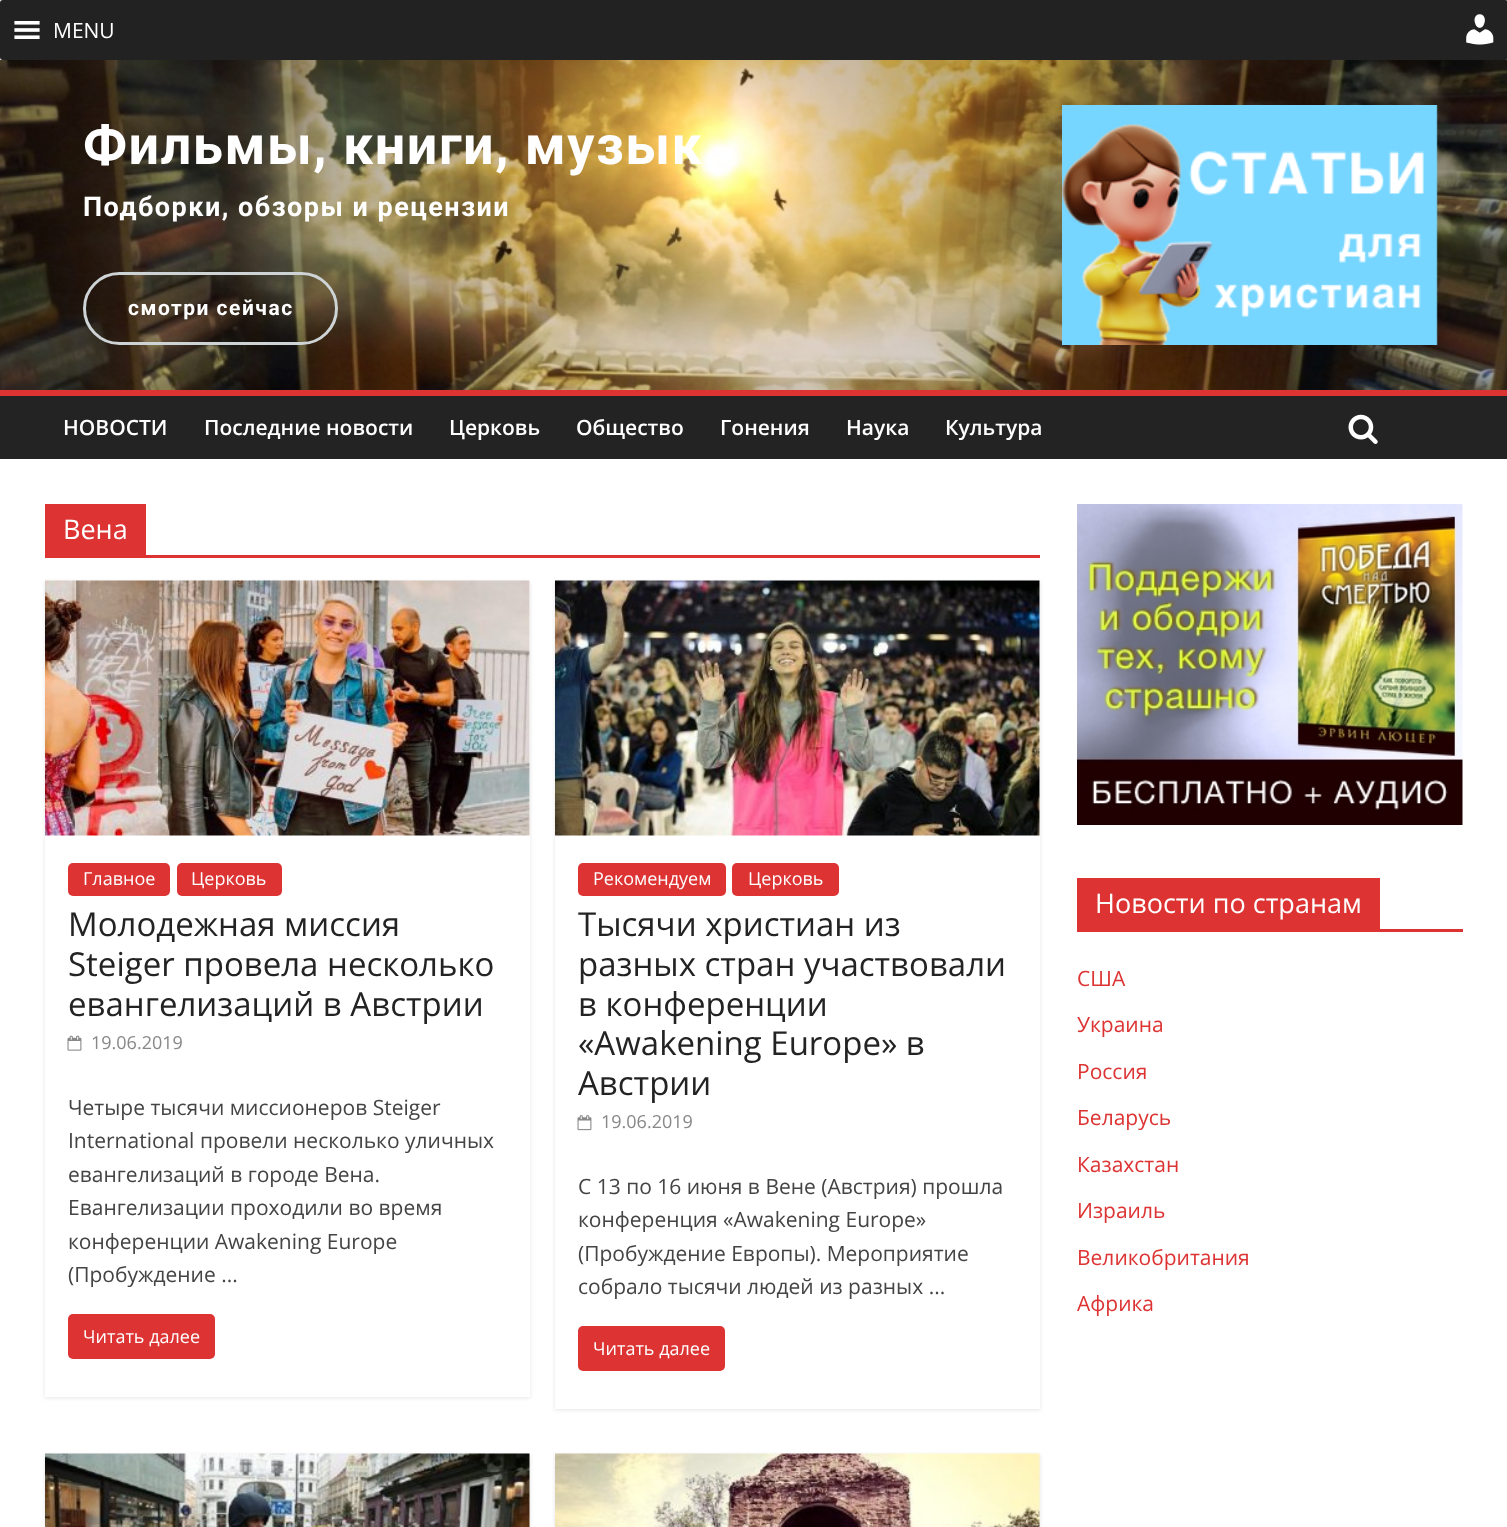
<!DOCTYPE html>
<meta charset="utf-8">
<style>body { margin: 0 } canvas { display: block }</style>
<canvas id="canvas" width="1507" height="1527"></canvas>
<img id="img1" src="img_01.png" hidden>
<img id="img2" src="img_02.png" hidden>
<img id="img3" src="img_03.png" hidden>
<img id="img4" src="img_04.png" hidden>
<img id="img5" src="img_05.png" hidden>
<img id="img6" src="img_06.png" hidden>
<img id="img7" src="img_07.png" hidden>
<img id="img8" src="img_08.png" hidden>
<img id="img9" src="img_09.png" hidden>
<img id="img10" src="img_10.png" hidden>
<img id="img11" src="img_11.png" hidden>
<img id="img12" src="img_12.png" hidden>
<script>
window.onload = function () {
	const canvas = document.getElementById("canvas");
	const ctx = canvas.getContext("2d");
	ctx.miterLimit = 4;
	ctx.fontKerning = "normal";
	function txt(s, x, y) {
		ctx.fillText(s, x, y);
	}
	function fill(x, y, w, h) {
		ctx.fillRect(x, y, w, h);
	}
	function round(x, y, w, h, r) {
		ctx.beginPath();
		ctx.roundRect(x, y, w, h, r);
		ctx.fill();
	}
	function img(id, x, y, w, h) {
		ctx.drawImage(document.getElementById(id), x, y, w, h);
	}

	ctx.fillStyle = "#EAEAEA";
	fill(0, 0, 1507, 1527);
	ctx.fillStyle = "#222222";
	round(0, 0, 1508, 60, 3);
	img("img1", 14, 21, 26, 18);
	img("img2", 1466, 14, 28, 31);
	img("img3", 0, 60, 1507, 330);
	ctx.beginPath();
	ctx.roundRect(84.5, 273.5, 252, 70, 35);
	ctx.strokeStyle = "#CED3D5";
	ctx.lineWidth = 3;
	ctx.stroke();
	img("img4", 1062, 105, 376, 240);
	ctx.fillStyle = "#232323";
	fill(0, 396, 1507, 63);
	ctx.fillStyle = "#DD3333";
	fill(0, 390, 1507, 6);
	img("img5", 1348, 414, 30, 30);
	ctx.fillStyle = "#FFFFFF";
	fill(0, 459, 1507, 1068);
	ctx.fillStyle = "#DD3333";
	fill(45, 555, 995, 3);
	fill(45, 504, 101, 51);
	ctx.save();
	ctx.beginPath();
	ctx.moveTo(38, 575);
	ctx.lineTo(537, 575);
	ctx.lineTo(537, 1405);
	ctx.lineTo(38, 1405);
	ctx.closePath();
	ctx.moveTo(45, 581);
	ctx.lineTo(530, 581);
	ctx.lineTo(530, 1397);
	ctx.lineTo(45, 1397);
	ctx.closePath();
	ctx.clip("evenodd");
	ctx.fillStyle = "rgba(0, 0, 0, 0.1)";
	ctx.filter = "blur(2px)";
	ctx.beginPath();
	ctx.rect(45, 582, 485, 816);
	ctx.fill();
	ctx.filter = "none";
	ctx.restore();
	img("img6", 45, 580, 485, 256);
	round(68, 863, 102, 33, 5);
	round(177, 863, 105, 33, 5);
	img("img7", 67, 1035, 15, 16);
	round(68, 1314, 147, 45, 5);
	ctx.save();
	ctx.beginPath();
	ctx.moveTo(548, 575);
	ctx.lineTo(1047, 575);
	ctx.lineTo(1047, 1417);
	ctx.lineTo(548, 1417);
	ctx.closePath();
	ctx.moveTo(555, 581);
	ctx.lineTo(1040, 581);
	ctx.lineTo(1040, 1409);
	ctx.lineTo(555, 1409);
	ctx.closePath();
	ctx.clip("evenodd");
	ctx.fillStyle = "rgba(0, 0, 0, 0.1)";
	ctx.filter = "blur(2px)";
	ctx.beginPath();
	ctx.rect(555, 582, 485, 828);
	ctx.fill();
	ctx.filter = "none";
	ctx.restore();
	img("img8", 555, 580, 485, 256);
	round(578, 863, 148, 33, 5);
	round(732, 863, 107, 33, 5);
	img("img9", 577, 1115, 15, 16);
	round(578, 1326, 147, 45, 5);
	ctx.fillStyle = "rgba(0, 0, 0, 0.1)";
	ctx.filter = "blur(2px)";
	ctx.beginPath();
	ctx.rect(45, 1455, 485, 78);
	ctx.fill();
	ctx.filter = "none";
	img("img10", 45, 1453, 485, 74);
	ctx.filter = "blur(2px)";
	ctx.beginPath();
	ctx.rect(555, 1455, 485, 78);
	ctx.fill();
	ctx.filter = "none";
	img("img11", 555, 1453, 485, 74);
	img("img12", 1077, 504, 386, 321);
	ctx.fillStyle = "#DD3333";
	fill(1077, 929, 386, 3);
	fill(1077, 878, 303, 51);
	ctx.font = "21px Open Sans";
	ctx.fillStyle = "#FFFFFF";
	txt("MENU", 53, 38);
	ctx.letterSpacing = "1.5px";
	ctx.font = "bold 54px Roboto";
	txt("Фильмы, книги, музык", 83, 164);
	ctx.font = "bold 27px Roboto";
	txt("Подборки, обзоры и рецензии", 83, 216);
	ctx.font = "bold 21px Roboto";
	txt("смотри сейчас", 128, 315);
	ctx.letterSpacing = "0px";
	ctx.font = "600 21px Open Sans";
	txt("НОВОСТИ", 63, 435);
	txt("Последние новости", 204, 435);
	txt("Церковь", 449, 435);
	txt("Общество", 576, 435);
	txt("Гонения", 720, 435);
	txt("Наука", 846, 435);
	txt("Культура", 945, 435);
	ctx.font = "27px Open Sans";
	txt("Вена", 63, 539);
	ctx.font = "18px Open Sans";
	txt("Главное", 83, 885);
	txt("Церковь", 191, 885);
	ctx.font = "33px Open Sans";
	ctx.fillStyle = "#232323";
	txt("Молодежная миссия", 68, 936);
	txt("Steiger провела несколько", 68, 976);
	txt("евангелизаций в Австрии", 68, 1016);
	ctx.font = "18px Open Sans";
	ctx.fillStyle = "#888888";
	txt("19.06.2019", 91, 1049);
	ctx.font = "21px Open Sans";
	ctx.fillStyle = "#444444";
	txt("Четыре тысячи миссионеров Steiger", 68, 1115);
	txt("International провели несколько уличных", 68, 1148);
	txt("евангелизаций в городе Вена.", 68, 1182);
	txt("Евангелизации проходили во время", 68, 1215);
	txt("конференции Awakening Europe", 68, 1249);
	txt("(Пробуждение ...", 68, 1282);
	ctx.font = "18px Open Sans";
	ctx.fillStyle = "#FFFFFF";
	txt("Читать далее", 83, 1343);
	txt("Рекомендуем", 593, 885);
	txt("Церковь", 748, 885);
	ctx.font = "33px Open Sans";
	ctx.fillStyle = "#232323";
	txt("Тысячи христиан из", 578, 936);
	txt("разных стран участвовали", 578, 976);
	txt("в конференции", 578, 1016);
	txt("«Awakening Europe» в", 578, 1055);
	txt("Австрии", 578, 1095);
	ctx.font = "18px Open Sans";
	ctx.fillStyle = "#888888";
	txt("19.06.2019", 601, 1128);
	ctx.font = "21px Open Sans";
	ctx.fillStyle = "#444444";
	txt("С 13 по 16 июня в Вене (Австрия) прошла", 578, 1194);
	txt("конференция «Awakening Europe»", 578, 1227);
	txt("(Пробуждение Европы). Мероприятие", 578, 1261);
	txt("собрало тысячи людей из разных ...", 578, 1294);
	ctx.font = "18px Open Sans";
	ctx.fillStyle = "#FFFFFF";
	txt("Читать далее", 593, 1355);
	ctx.font = "27px Open Sans";
	txt("Новости по странам", 1095, 913);
	ctx.font = "21px Open Sans";
	ctx.fillStyle = "#DD3333";
	txt("США", 1077, 986);
	txt("Украина", 1077, 1032);
	txt("Россия", 1077, 1079);
	txt("Беларусь", 1077, 1125);
	txt("Казахстан", 1077, 1172);
	txt("Израиль", 1077, 1218);
	txt("Великобритания", 1077, 1265);
	txt("Африка", 1077, 1311);
};
</script>
